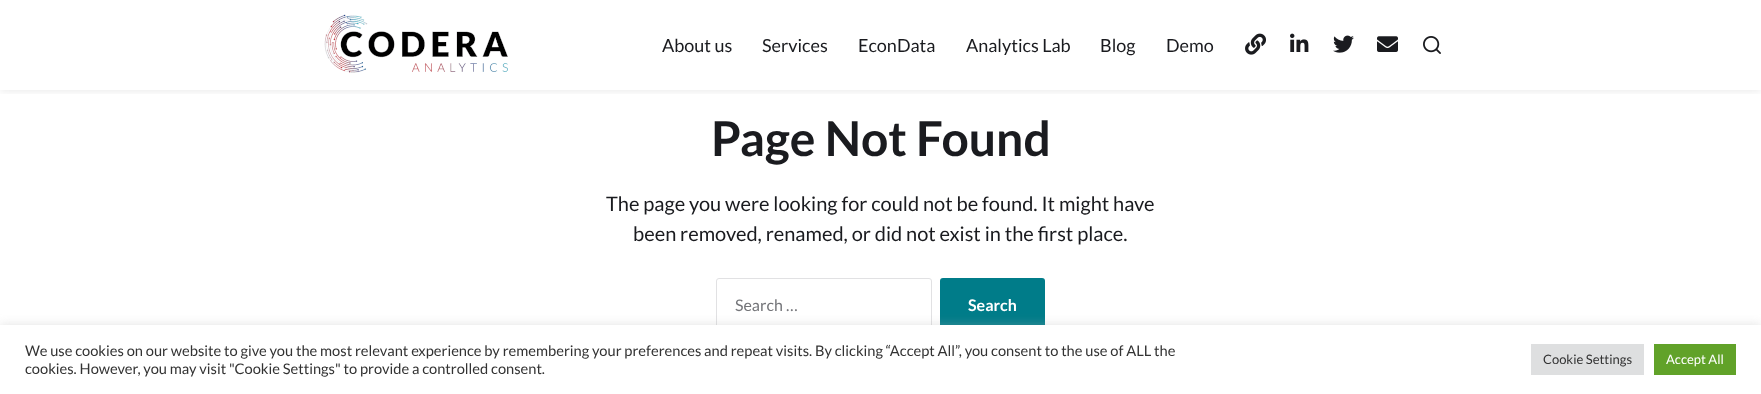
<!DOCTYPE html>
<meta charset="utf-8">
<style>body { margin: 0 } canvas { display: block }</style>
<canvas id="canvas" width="1761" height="394"></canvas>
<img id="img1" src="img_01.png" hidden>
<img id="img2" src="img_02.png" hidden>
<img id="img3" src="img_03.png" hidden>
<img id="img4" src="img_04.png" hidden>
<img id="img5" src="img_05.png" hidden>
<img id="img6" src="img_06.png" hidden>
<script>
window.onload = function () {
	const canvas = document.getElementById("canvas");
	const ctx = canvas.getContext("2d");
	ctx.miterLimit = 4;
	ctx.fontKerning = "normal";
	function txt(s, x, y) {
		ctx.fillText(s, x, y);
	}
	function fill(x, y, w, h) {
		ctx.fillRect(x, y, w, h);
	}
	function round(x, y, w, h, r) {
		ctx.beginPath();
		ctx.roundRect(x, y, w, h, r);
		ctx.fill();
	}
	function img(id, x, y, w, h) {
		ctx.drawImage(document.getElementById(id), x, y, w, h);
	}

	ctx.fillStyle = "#FFFFFF";
	fill(0, 0, 1761, 394);
	ctx.save();
	ctx.beginPath();
	ctx.rect(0, 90, 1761, 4);
	ctx.clip();
	ctx.fillStyle = "rgba(0, 0, 0, 0.1)";
	ctx.filter = "blur(5px)";
	ctx.beginPath();
	ctx.rect(0, 0, 1761, 90);
	ctx.fill();
	ctx.filter = "none";
	ctx.restore();
	img("img1", 324, 14, 184, 59);
	img("img2", 1245, 33, 21, 22);
	img("img3", 1290, 33, 19, 19);
	img("img4", 1333, 35, 21, 18);
	img("img5", 1377, 36, 21, 16);
	img("img6", 1423, 36, 18, 18);
	ctx.beginPath();
	ctx.roundRect(716.5, 278.5, 215, 53, 2.5);
	ctx.strokeStyle = "#E1E1E3";
	ctx.stroke();
	ctx.fillStyle = "#007C89";
	round(940, 278, 105, 54, 3);
	ctx.fillStyle = "rgba(172, 171, 171, 0.3)";
	ctx.filter = "blur(5px)";
	ctx.beginPath();
	ctx.rect(0, 324, 1761, 69);
	ctx.fill();
	ctx.filter = "none";
	ctx.fillStyle = "#FFFFFF";
	fill(0, 325, 1761, 69);
	ctx.fillStyle = "#DEDFE0";
	fill(1531, 344, 113, 31);
	ctx.fillStyle = "#61A229";
	fill(1654, 344, 82, 31);
	ctx.font = "18px Lato";
	ctx.fillStyle = "#1A1B1F";
	txt("About us", 662, 52);
	txt("Services", 762, 52);
	txt("EconData", 858, 52);
	txt("Analytics Lab", 966, 52);
	txt("Blog", 1100, 52);
	txt("Demo", 1166, 52);
	ctx.font = "bold 48px Lato";
	txt("Page Not Found", 711, 156);
	ctx.font = "20px Lato";
	txt("The page you were looking for could not be found. It might have", 606, 211);
	txt("been removed, renamed, or did not exist in the first place.", 633, 241);
	ctx.font = "16px Lato";
	ctx.fillStyle = "#747579";
	txt("Search …", 735, 311);
	ctx.font = "bold 16px Lato";
	ctx.fillStyle = "#FFFFFF";
	txt("Search", 968, 311);
	ctx.font = "14.67px Lato";
	ctx.fillStyle = "#333333";
	txt("We use cookies on our website to give you the most relevant experience by remembering your preferences and repeat visits. By clicking “Accept All”, you consent to the use of ALL the", 25, 356);
	txt("cookies. However, you may visit \"Cookie Settings\" to provide a controlled consent.", 25, 374);
	ctx.font = "13px Lato";
	txt("Cookie Settings", 1543, 364);
	ctx.fillStyle = "#FFFFFF";
	txt("Accept All", 1666, 364);
};
</script>
